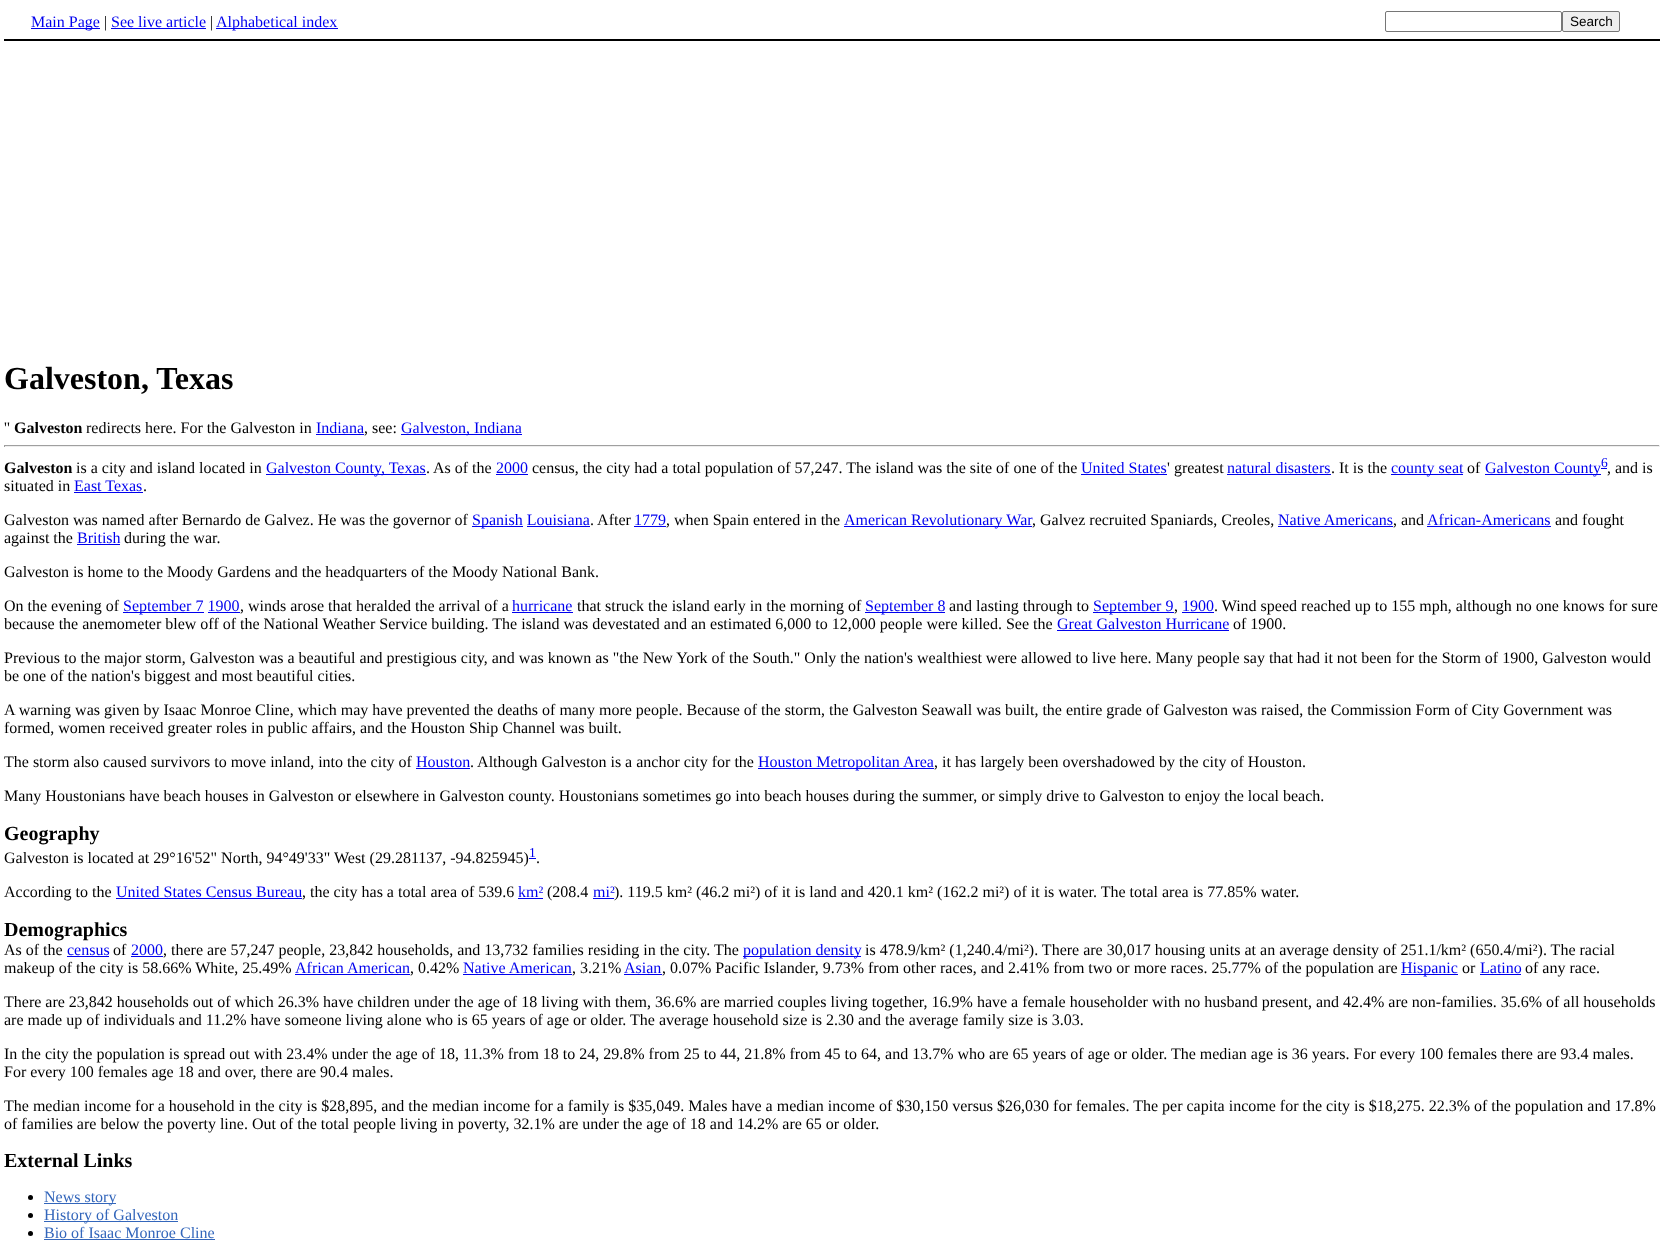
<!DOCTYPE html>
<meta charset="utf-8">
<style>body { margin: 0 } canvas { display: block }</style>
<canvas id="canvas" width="1664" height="1249"></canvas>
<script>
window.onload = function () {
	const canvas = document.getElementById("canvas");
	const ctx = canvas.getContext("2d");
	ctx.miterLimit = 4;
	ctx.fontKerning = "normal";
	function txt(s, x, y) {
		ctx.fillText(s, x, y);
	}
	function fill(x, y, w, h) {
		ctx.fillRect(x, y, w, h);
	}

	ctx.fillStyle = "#FFFFFF";
	fill(0, 0, 1664, 1249);
	ctx.fillStyle = "#000000";
	fill(4, 39, 1656, 2);
	ctx.fillStyle = "#0000EE";
	fill(31, 28, 69, 1);
	fill(111, 28, 95, 1);
	fill(216, 28, 122, 1);
	ctx.beginPath();
	ctx.roundRect(1385.5, 11.5, 176, 20, 1.5);
	ctx.strokeStyle = "#767676";
	ctx.stroke();
	ctx.fillStyle = "#EFEFEF";
	ctx.beginPath();
	ctx.roundRect(1562.5, 11.5, 57, 20, 1.5);
	ctx.fill();
	ctx.stroke();
	ctx.fillStyle = "#0000EE";
	fill(316, 434, 48, 1);
	fill(401, 434, 121, 1);
	ctx.fillStyle = "#9F9F9F";
	fill(4, 445, 1656, 1);
	ctx.fillStyle = "#EEEEEE";
	fill(1659, 445, 1, 2);
	fill(4, 446, 1656, 1);
	ctx.fillStyle = "#9F9F9F";
	fill(4, 445, 1, 2);
	ctx.fillStyle = "#0000EE";
	fill(266, 474, 160, 1);
	fill(496, 474, 32, 1);
	fill(1081, 474, 86, 1);
	fill(1227, 474, 104, 1);
	fill(1391, 474, 72, 1);
	fill(1485, 474, 116, 1);
	fill(1601, 468, 6, 1);
	fill(74, 492, 69, 1);
	fill(472, 526, 51, 1);
	fill(634, 526, 32, 1);
	fill(844, 526, 188, 1);
	fill(1278, 526, 115, 1);
	fill(1427, 526, 124, 1);
	fill(527, 526, 63, 1);
	fill(77, 544, 43, 1);
	fill(123, 612, 81, 1);
	fill(512, 612, 61, 1);
	fill(865, 612, 80, 1);
	fill(1093, 612, 81, 1);
	fill(1182, 612, 32, 1);
	fill(208, 612, 32, 1);
	fill(1057, 630, 172, 1);
	fill(416, 768, 54, 1);
	fill(758, 768, 176, 1);
	fill(529, 858, 7, 1);
	fill(116, 898, 186, 1);
	fill(518, 898, 25, 1);
	fill(593, 898, 21, 1);
	fill(67, 956, 42, 1);
	fill(131, 956, 32, 1);
	fill(743, 956, 118, 1);
	fill(295, 974, 115, 1);
	fill(463, 974, 109, 1);
	fill(624, 974, 38, 1);
	fill(1401, 974, 57, 1);
	fill(1480, 974, 41, 1);
	ctx.fillStyle = "#000000";
	ctx.beginPath();
	ctx.arc(30.5, 1197.5, 2.5, 0, Math.PI * 2);
	ctx.fill();
	ctx.fillStyle = "#3366BB";
	fill(44, 1203, 72, 1);
	ctx.fillStyle = "#000000";
	ctx.beginPath();
	ctx.arc(30.5, 1215.5, 2.5, 0, Math.PI * 2);
	ctx.fill();
	ctx.fillStyle = "#3366BB";
	fill(44, 1221, 134, 1);
	ctx.fillStyle = "#000000";
	ctx.beginPath();
	ctx.arc(30.5, 1233.5, 2.5, 0, Math.PI * 2);
	ctx.fill();
	ctx.fillStyle = "#3366BB";
	fill(44, 1239, 171, 1);
	ctx.font = "16px Liberation Serif";
	ctx.fillStyle = "#0000EE";
	txt("Main Page", 31, 27);
	ctx.fillStyle = "#000000";
	txt("|", 104, 27);
	ctx.fillStyle = "#0000EE";
	txt("See live article", 111, 27);
	ctx.fillStyle = "#000000";
	txt("|", 210, 27);
	ctx.fillStyle = "#0000EE";
	txt("Alphabetical index", 216, 27);
	ctx.font = "13.5px Liberation Sans";
	ctx.fillStyle = "#000000";
	txt("Search", 1570, 26);
	ctx.font = "bold 32px Liberation Serif";
	txt("Galveston, Texas", 4, 389);
	ctx.font = "16px Liberation Serif";
	txt("''", 4, 433);
	ctx.font = "bold 16px Liberation Serif";
	txt("Galveston", 14, 433);
	ctx.font = "16px Liberation Serif";
	txt("redirects here. For the Galveston in", 86, 433);
	ctx.fillStyle = "#0000EE";
	txt("Indiana", 316, 433);
	txt("Galveston, Indiana", 401, 433);
	ctx.fillStyle = "#000000";
	txt(", see:", 364, 433);
	ctx.font = "bold 16px Liberation Serif";
	txt("Galveston", 4, 473);
	ctx.font = "16px Liberation Serif";
	txt("is a city and island located in", 76, 473);
	ctx.fillStyle = "#0000EE";
	txt("Galveston County, Texas", 266, 473);
	ctx.fillStyle = "#000000";
	txt(".", 426, 473);
	txt("As of the", 433, 473);
	ctx.fillStyle = "#0000EE";
	txt("2000", 496, 473);
	ctx.fillStyle = "#000000";
	txt("census, the city had a total population of 57,247. The island was the site of one of the", 532, 473);
	ctx.fillStyle = "#0000EE";
	txt("United States", 1081, 473);
	ctx.fillStyle = "#000000";
	txt("' greatest", 1167, 473);
	ctx.fillStyle = "#0000EE";
	txt("natural disasters", 1227, 473);
	ctx.fillStyle = "#000000";
	txt(". It is the", 1331, 473);
	ctx.fillStyle = "#0000EE";
	txt("county seat", 1391, 473);
	ctx.fillStyle = "#000000";
	txt("of", 1467, 473);
	ctx.fillStyle = "#0000EE";
	txt("Galveston County", 1485, 473);
	ctx.font = "13.5px Liberation Serif";
	txt("6", 1601, 467);
	ctx.font = "16px Liberation Serif";
	ctx.fillStyle = "#000000";
	txt(", and is", 1607, 473);
	txt("situated in", 4, 491);
	ctx.fillStyle = "#0000EE";
	txt("East Texas", 74, 491);
	ctx.fillStyle = "#000000";
	txt(".", 143, 491);
	txt("Galveston was named after Bernardo de Galvez. He was the governor of", 4, 525);
	ctx.fillStyle = "#0000EE";
	txt("Spanish Louisiana", 472, 525);
	ctx.fillStyle = "#000000";
	txt(". After", 590, 525);
	ctx.fillStyle = "#0000EE";
	txt("1779", 634, 525);
	ctx.fillStyle = "#000000";
	txt(", when Spain entered in the", 666, 525);
	ctx.fillStyle = "#0000EE";
	txt("American Revolutionary War", 844, 525);
	ctx.fillStyle = "#000000";
	txt(", Galvez recruited Spaniards, Creoles,", 1032, 525);
	ctx.fillStyle = "#0000EE";
	txt("Native Americans", 1278, 525);
	ctx.fillStyle = "#000000";
	txt(", and", 1393, 525);
	ctx.fillStyle = "#0000EE";
	txt("African-Americans", 1427, 525);
	ctx.fillStyle = "#000000";
	txt("and fought", 1555, 525);
	txt("against the", 4, 543);
	ctx.fillStyle = "#0000EE";
	txt("British", 77, 543);
	ctx.fillStyle = "#000000";
	txt("during the war.", 124, 543);
	txt("Galveston is home to the Moody Gardens and the headquarters of the Moody National Bank.", 4, 577);
	txt("On the evening of", 4, 611);
	ctx.fillStyle = "#0000EE";
	txt("September 7 1900", 123, 611);
	ctx.fillStyle = "#000000";
	txt(", winds arose that heralded the arrival of a", 240, 611);
	ctx.fillStyle = "#0000EE";
	txt("hurricane", 512, 611);
	ctx.fillStyle = "#000000";
	txt("that struck the island early in the morning of", 577, 611);
	ctx.fillStyle = "#0000EE";
	txt("September 8", 865, 611);
	ctx.fillStyle = "#000000";
	txt("and lasting through to", 949, 611);
	ctx.fillStyle = "#0000EE";
	txt("September 9", 1093, 611);
	ctx.fillStyle = "#000000";
	txt(",", 1174, 611);
	ctx.fillStyle = "#0000EE";
	txt("1900", 1182, 611);
	ctx.fillStyle = "#000000";
	txt(". Wind speed reached up to 155 mph, although no one knows for sure", 1214, 611);
	txt("because the anemometer blew off of the National Weather Service building. The island was devestated and an estimated 6,000 to 12,000 people were killed. See the", 4, 629);
	ctx.fillStyle = "#0000EE";
	txt("Great Galveston Hurricane", 1057, 629);
	ctx.fillStyle = "#000000";
	txt("of 1900.", 1233, 629);
	txt("Previous to the major storm, Galveston was a beautiful and prestigious city, and was known as \"the New York of the South.\" Only the nation's wealthiest were allowed to live here. Many people say that had it not been for the Storm of 1900, Galveston would", 4, 663);
	txt("be one of the nation's biggest and most beautiful cities.", 4, 681);
	txt("A warning was given by Isaac Monroe Cline, which may have prevented the deaths of many more people. Because of the storm, the Galveston Seawall was built, the entire grade of Galveston was raised, the Commission Form of City Government was", 4, 715);
	txt("formed, women received greater roles in public affairs, and the Houston Ship Channel was built.", 4, 733);
	txt("The storm also caused survivors to move inland, into the city of", 4, 767);
	ctx.fillStyle = "#0000EE";
	txt("Houston", 416, 767);
	ctx.fillStyle = "#000000";
	txt(". Although Galveston is a anchor city for the", 470, 767);
	ctx.fillStyle = "#0000EE";
	txt("Houston Metropolitan Area", 758, 767);
	ctx.fillStyle = "#000000";
	txt(", it has largely been overshadowed by the city of Houston.", 934, 767);
	txt("Many Houstonians have beach houses in Galveston or elsewhere in Galveston county. Houstonians sometimes go into beach houses during the summer, or simply drive to Galveston to enjoy the local beach.", 4, 801);
	ctx.font = "bold 20px Liberation Serif";
	txt("Geography", 4, 840);
	ctx.font = "16px Liberation Serif";
	txt("Galveston is located at 29°16'52\" North, 94°49'33\" West (29.281137, -94.825945)", 4, 863);
	ctx.font = "13.5px Liberation Serif";
	ctx.fillStyle = "#0000EE";
	txt("1", 529, 857);
	ctx.font = "16px Liberation Serif";
	ctx.fillStyle = "#000000";
	txt(".", 536, 863);
	txt("According to the", 4, 897);
	ctx.fillStyle = "#0000EE";
	txt("United States Census Bureau", 116, 897);
	ctx.fillStyle = "#000000";
	txt(", the city has a total area of 539.6", 302, 897);
	ctx.fillStyle = "#0000EE";
	txt("km²", 518, 897);
	ctx.fillStyle = "#000000";
	txt("(208.4", 547, 897);
	ctx.fillStyle = "#0000EE";
	txt("mi²", 593, 897);
	ctx.fillStyle = "#000000";
	txt("). 119.5 km² (46.2 mi²) of it is land and 420.1 km² (162.2 mi²) of it is water. The total area is 77.85% water.", 614, 897);
	ctx.font = "bold 20px Liberation Serif";
	txt("Demographics", 4, 936);
	ctx.font = "16px Liberation Serif";
	txt("As of the", 4, 955);
	ctx.fillStyle = "#0000EE";
	txt("census", 67, 955);
	ctx.fillStyle = "#000000";
	txt("of", 113, 955);
	ctx.fillStyle = "#0000EE";
	txt("2000", 131, 955);
	ctx.fillStyle = "#000000";
	txt(", there are 57,247 people, 23,842 households, and 13,732 families residing in the city. The", 163, 955);
	ctx.fillStyle = "#0000EE";
	txt("population density", 743, 955);
	ctx.fillStyle = "#000000";
	txt("is 478.9/km² (1,240.4/mi²). There are 30,017 housing units at an average density of 251.1/km² (650.4/mi²). The racial", 865, 955);
	txt("makeup of the city is 58.66% White, 25.49%", 4, 973);
	ctx.fillStyle = "#0000EE";
	txt("African American", 295, 973);
	ctx.fillStyle = "#000000";
	txt(", 0.42%", 410, 973);
	ctx.fillStyle = "#0000EE";
	txt("Native American", 463, 973);
	ctx.fillStyle = "#000000";
	txt(", 3.21%", 572, 973);
	ctx.fillStyle = "#0000EE";
	txt("Asian", 624, 973);
	ctx.fillStyle = "#000000";
	txt(", 0.07% Pacific Islander, 9.73% from other races, and 2.41% from two or more races. 25.77% of the population are", 662, 973);
	ctx.fillStyle = "#0000EE";
	txt("Hispanic", 1401, 973);
	ctx.fillStyle = "#000000";
	txt("or", 1462, 973);
	ctx.fillStyle = "#0000EE";
	txt("Latino", 1480, 973);
	ctx.fillStyle = "#000000";
	txt("of any race.", 1525, 973);
	txt("There are 23,842 households out of which 26.3% have children under the age of 18 living with them, 36.6% are married couples living together, 16.9% have a female householder with no husband present, and 42.4% are non-families. 35.6% of all households", 4, 1007);
	txt("are made up of individuals and 11.2% have someone living alone who is 65 years of age or older. The average household size is 2.30 and the average family size is 3.03.", 4, 1025);
	txt("In the city the population is spread out with 23.4% under the age of 18, 11.3% from 18 to 24, 29.8% from 25 to 44, 21.8% from 45 to 64, and 13.7% who are 65 years of age or older. The median age is 36 years. For every 100 females there are 93.4 males.", 4, 1059);
	txt("For every 100 females age 18 and over, there are 90.4 males.", 4, 1077);
	txt("The median income for a household in the city is $28,895, and the median income for a family is $35,049. Males have a median income of $30,150 versus $26,030 for females. The per capita income for the city is $18,275. 22.3% of the population and 17.8%", 4, 1111);
	txt("of families are below the poverty line. Out of the total people living in poverty, 32.1% are under the age of 18 and 14.2% are 65 or older.", 4, 1129);
	ctx.font = "bold 20px Liberation Serif";
	txt("External Links", 4, 1167);
	ctx.font = "16px Liberation Serif";
	ctx.fillStyle = "#3366BB";
	txt("News story", 44, 1202);
	txt("History of Galveston", 44, 1220);
	txt("Bio of Isaac Monroe Cline", 44, 1238);
};
</script>
